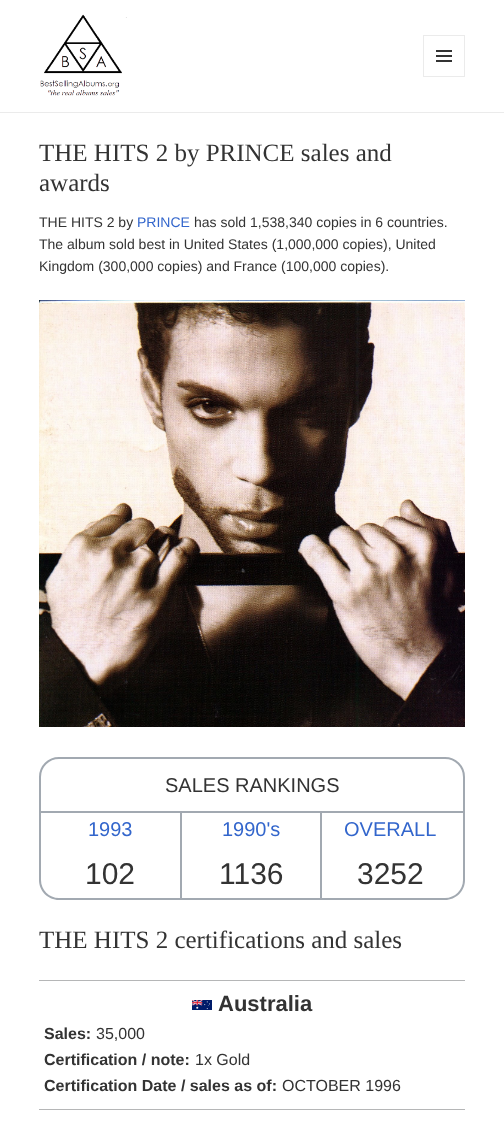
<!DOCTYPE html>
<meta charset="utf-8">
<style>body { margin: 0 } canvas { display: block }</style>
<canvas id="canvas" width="504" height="1126"></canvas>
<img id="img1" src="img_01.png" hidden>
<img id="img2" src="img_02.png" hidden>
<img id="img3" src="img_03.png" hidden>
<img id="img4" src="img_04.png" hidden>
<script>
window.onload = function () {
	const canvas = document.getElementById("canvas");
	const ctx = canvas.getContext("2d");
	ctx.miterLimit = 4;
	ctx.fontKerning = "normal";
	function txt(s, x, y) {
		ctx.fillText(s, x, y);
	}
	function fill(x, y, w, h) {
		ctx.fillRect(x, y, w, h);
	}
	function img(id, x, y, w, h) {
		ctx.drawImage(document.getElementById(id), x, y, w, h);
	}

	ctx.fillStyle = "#FFFFFF";
	fill(0, 0, 504, 1126);
	ctx.fillStyle = "#EBEBEB";
	fill(0, 112, 504, 1);
	img("img1", 40, 14, 87, 82);
	ctx.strokeStyle = "#EBEBEB";
	ctx.strokeRect(423.5, 35.5, 41, 41);
	img("img2", 436, 50, 16, 12);
	img("img3", 39, 300, 426, 427);
	ctx.beginPath();
	ctx.roundRect(40, 758, 424, 54, [19, 19, 0, 0]);
	ctx.strokeStyle = "#A2A9B1";
	ctx.lineWidth = 2;
	ctx.stroke();
	ctx.fillStyle = "#A2A9B1";
	ctx.beginPath();
	ctx.moveTo(39, 813);
	ctx.lineTo(465, 813);
	ctx.lineTo(465, 880);
	ctx.bezierCurveTo(465, 891, 456, 900, 445, 900);
	ctx.lineTo(59, 900);
	ctx.bezierCurveTo(48, 900, 39, 891, 39, 880);
	ctx.closePath();
	ctx.moveTo(41, 813);
	ctx.lineTo(463, 813);
	ctx.lineTo(463, 880);
	ctx.bezierCurveTo(463, 890, 455, 898, 445, 898);
	ctx.lineTo(59, 898);
	ctx.bezierCurveTo(49, 898, 41, 890, 41, 880);
	ctx.closePath();
	ctx.fill("evenodd");
	fill(180, 813, 2, 85);
	fill(320, 813, 2, 85);
	ctx.fillStyle = "#B5B6B7";
	fill(39, 980, 426, 1);
	img("img4", 192, 1000, 20, 10);
	fill(39, 1109, 426, 1);
	ctx.font = "25px Liberation Serif";
	ctx.fillStyle = "#333333";
	txt("THE HITS 2 by PRINCE sales and", 39, 161);
	txt("awards", 39, 191);
	ctx.font = "14px Liberation Sans";
	txt("THE HITS 2 by", 39, 227);
	ctx.fillStyle = "#3366CC";
	txt("PRINCE", 137, 227);
	ctx.fillStyle = "#333333";
	txt("has sold 1,538,340 copies in 6 countries.", 194, 227);
	txt("The album sold best in United States (1,000,000 copies), United", 39, 249);
	txt("Kingdom (300,000 copies) and France (100,000 copies).", 39, 271);
	ctx.font = "20px Liberation Sans";
	txt("SALES RANKINGS", 165, 792);
	ctx.fillStyle = "#3366CC";
	txt("1993", 88, 836);
	ctx.font = "30px Liberation Sans";
	ctx.fillStyle = "#333333";
	txt("102", 85, 884);
	ctx.font = "20px Liberation Sans";
	ctx.fillStyle = "#3366CC";
	txt("1990's", 222, 836);
	ctx.font = "30px Liberation Sans";
	ctx.fillStyle = "#333333";
	txt("1136", 219, 884);
	ctx.font = "20px Liberation Sans";
	ctx.fillStyle = "#3366CC";
	txt("OVERALL", 344, 836);
	ctx.font = "30px Liberation Sans";
	ctx.fillStyle = "#333333";
	txt("3252", 357, 884);
	ctx.font = "25px Liberation Serif";
	txt("THE HITS 2 certifications and sales", 39, 948);
	ctx.font = "bold 22px Liberation Sans";
	txt("Australia", 218, 1011);
	ctx.font = "bold 16px Liberation Sans";
	txt("Sales:", 44, 1039);
	ctx.font = "16px Liberation Sans";
	txt("35,000", 96, 1039);
	ctx.font = "bold 16px Liberation Sans";
	txt("Certification / note:", 44, 1065);
	ctx.font = "16px Liberation Sans";
	txt("1x Gold", 195, 1065);
	ctx.font = "bold 16px Liberation Sans";
	txt("Certification Date / sales as of:", 44, 1091);
	ctx.font = "16px Liberation Sans";
	txt("OCTOBER 1996", 282, 1091);
};
</script>
